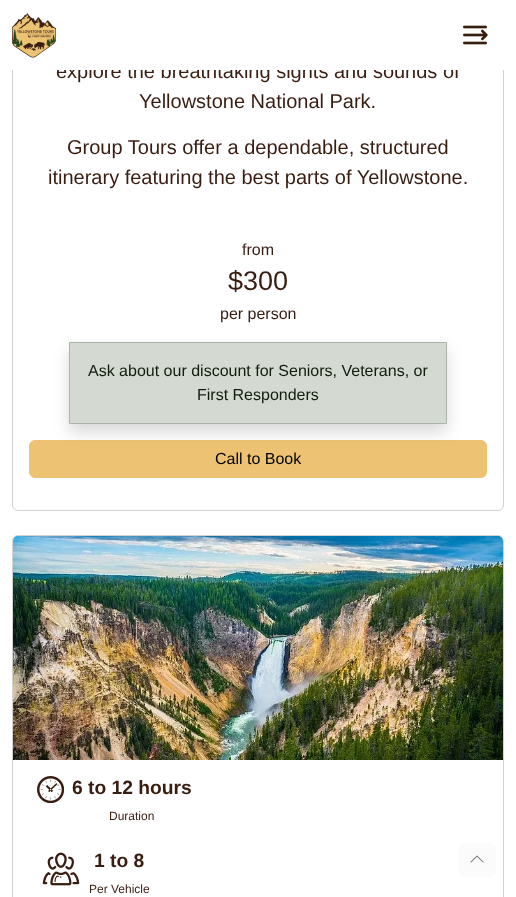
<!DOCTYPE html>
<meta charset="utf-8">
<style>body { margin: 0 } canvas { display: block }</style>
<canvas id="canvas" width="516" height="897"></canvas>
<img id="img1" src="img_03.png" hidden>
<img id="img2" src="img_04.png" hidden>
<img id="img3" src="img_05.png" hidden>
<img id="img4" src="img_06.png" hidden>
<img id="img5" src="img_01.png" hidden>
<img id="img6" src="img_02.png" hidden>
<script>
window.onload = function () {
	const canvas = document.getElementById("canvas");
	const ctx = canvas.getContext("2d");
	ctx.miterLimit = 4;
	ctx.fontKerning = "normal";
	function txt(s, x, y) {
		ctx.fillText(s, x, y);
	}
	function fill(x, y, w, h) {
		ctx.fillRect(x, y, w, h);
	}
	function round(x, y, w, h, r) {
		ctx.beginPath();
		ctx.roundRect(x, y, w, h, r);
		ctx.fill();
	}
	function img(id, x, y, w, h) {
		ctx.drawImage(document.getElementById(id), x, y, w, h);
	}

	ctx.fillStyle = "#FFFFFF";
	fill(0, 0, 516, 897);
	ctx.beginPath();
	ctx.roundRect(12.5, -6.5, 491, 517, 5.5);
	ctx.strokeStyle = "#D2D2D2";
	ctx.stroke();
	ctx.fillStyle = "#EDC373";
	ctx.beginPath();
	ctx.roundRect(29.5, 440.5, 457, 37, 5.5);
	ctx.fill();
	ctx.strokeStyle = "#EDC373";
	ctx.stroke();
	ctx.fillStyle = "rgba(0, 0, 0, 0.15)";
	ctx.filter = "blur(8px)";
	ctx.beginPath();
	ctx.rect(69, 350, 378, 82);
	ctx.fill();
	ctx.filter = "none";
	ctx.fillStyle = "#D4DAD2";
	ctx.beginPath();
	ctx.rect(69.5, 342.5, 377, 81);
	ctx.fill();
	ctx.strokeStyle = "#A9B5A6";
	ctx.stroke();
	ctx.beginPath();
	ctx.roundRect(12.5, 535.5, 491, 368, 5.5);
	ctx.strokeStyle = "#D2D2D2";
	ctx.stroke();
	img("img1", 13, 536, 490, 224);
	img("img2", 37, 776, 27, 27);
	img("img3", 42, 852, 38, 34);
	ctx.fillStyle = "#FBFBFC";
	round(458, 843, 38, 34, 6);
	img("img4", 470, 855, 14, 8);
	ctx.font = "20px Liberation Sans";
	ctx.fillStyle = "#391D11";
	txt("explore the breathtaking sights and sounds of", 56, 78);
	ctx.fillStyle = "#FFFFFF";
	fill(12, 0, 492, 70);
	img("img5", 12, 13, 44, 45);
	img("img6", 463, 25, 25, 20);
	ctx.fillStyle = "#391D11";
	txt("Yellowstone National Park.", 139, 108);
	txt("Group Tours offer a dependable, structured", 67, 154);
	txt("itinerary featuring the best parts of Yellowstone.", 48, 184);
	ctx.font = "16px Liberation Sans";
	txt("from", 242, 255);
	ctx.font = "27px Liberation Sans";
	txt("$300", 228, 290);
	ctx.font = "16px Liberation Sans";
	txt("per person", 220, 319);
	ctx.fillStyle = "#101C0D";
	txt("Ask about our discount for Seniors, Veterans, or", 88, 376);
	txt("First Responders", 197, 400);
	ctx.fillStyle = "#000000";
	txt("Call to Book", 215, 464);
	ctx.font = "bold 19.25px Liberation Sans";
	ctx.fillStyle = "#391D11";
	txt("6 to 12 hours", 72, 794);
	ctx.font = "12px Liberation Sans";
	txt("Duration", 109, 820);
	ctx.font = "bold 19.25px Liberation Sans";
	txt("1 to 8", 94, 867);
	ctx.font = "12px Liberation Sans";
	txt("Per Vehicle", 89, 893);
};
</script>
